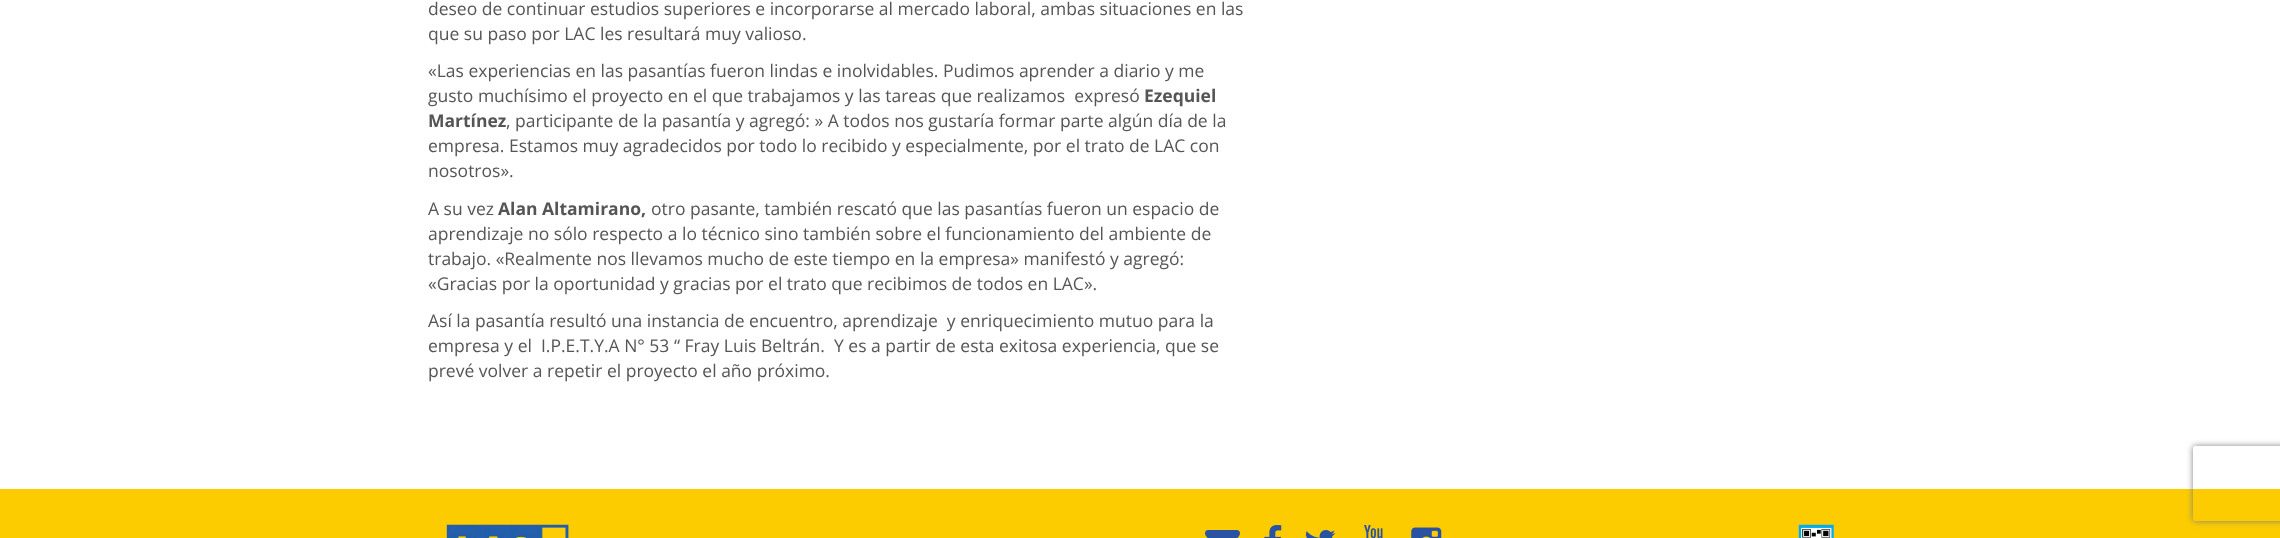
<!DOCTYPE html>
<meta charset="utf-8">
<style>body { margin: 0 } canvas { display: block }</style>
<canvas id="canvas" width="2280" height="538"></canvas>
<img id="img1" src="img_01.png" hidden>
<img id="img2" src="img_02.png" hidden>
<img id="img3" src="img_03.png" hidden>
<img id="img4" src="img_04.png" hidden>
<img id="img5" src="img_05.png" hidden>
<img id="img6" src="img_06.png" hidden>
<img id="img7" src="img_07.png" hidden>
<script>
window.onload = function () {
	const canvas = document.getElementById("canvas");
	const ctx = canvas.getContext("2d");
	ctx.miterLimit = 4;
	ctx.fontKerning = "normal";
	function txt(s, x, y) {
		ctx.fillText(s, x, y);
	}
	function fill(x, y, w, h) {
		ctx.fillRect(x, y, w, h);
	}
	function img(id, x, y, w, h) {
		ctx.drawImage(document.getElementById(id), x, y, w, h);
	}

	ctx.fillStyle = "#FFFFFF";
	fill(0, 0, 2280, 538);
	ctx.fillStyle = "#FCCC00";
	fill(0, 489, 2280, 49);
	ctx.save();
	ctx.beginPath();
	ctx.moveTo(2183, 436);
	ctx.lineTo(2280, 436);
	ctx.lineTo(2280, 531);
	ctx.lineTo(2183, 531);
	ctx.closePath();
	ctx.moveTo(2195.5, 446);
	ctx.lineTo(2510.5, 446);
	ctx.bezierCurveTo(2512, 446, 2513, 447, 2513, 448.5);
	ctx.lineTo(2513, 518.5);
	ctx.bezierCurveTo(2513, 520, 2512, 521, 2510.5, 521);
	ctx.lineTo(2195.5, 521);
	ctx.bezierCurveTo(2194, 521, 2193, 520, 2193, 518.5);
	ctx.lineTo(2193, 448.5);
	ctx.bezierCurveTo(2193, 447, 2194, 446, 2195.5, 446);
	ctx.closePath();
	ctx.clip("evenodd");
	ctx.fillStyle = "#808080";
	ctx.filter = "blur(3px)";
	ctx.beginPath();
	ctx.roundRect(2193, 446, 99, 75, 2.5);
	ctx.fill();
	ctx.filter = "none";
	ctx.restore();
	img("img1", 446, 524, 123, 14);
	img("img2", 1205, 530, 35, 8);
	img("img3", 1264, 525, 18, 13);
	img("img4", 1305, 530, 31, 8);
	img("img5", 1364, 525, 19, 13);
	img("img6", 1411, 527, 31, 11);
	img("img7", 1798, 524, 36, 14);
	ctx.font = "17.5px Open Sans";
	ctx.fillStyle = "#555555";
	txt("deseo de continuar estudios superiores e incorporarse al mercado laboral, ambas situaciones en las", 428, 15);
	txt("que su paso por LAC les resultará muy valioso.", 428, 40);
	txt("«Las experiencias en las pasantías fueron lindas e inolvidables. Pudimos aprender a diario y me", 428, 77);
	txt("gusto muchísimo el proyecto en el que trabajamos y las tareas que realizamos  expresó", 428, 102);
	ctx.font = "bold 17.5px Open Sans";
	txt("Ezequiel", 1144, 102);
	txt("Martínez", 428, 127);
	ctx.font = "17.5px Open Sans";
	txt(", participante de la pasantía y agregó: » A todos nos gustaría formar parte algún día de la", 506, 127);
	txt("empresa. Estamos muy agradecidos por todo lo recibido y especialmente, por el trato de LAC con", 428, 152);
	txt("nosotros».", 428, 177);
	txt("A su vez", 428, 215);
	ctx.font = "bold 17.5px Open Sans";
	txt("Alan Altamirano,", 498, 215);
	ctx.font = "17.5px Open Sans";
	txt("otro pasante, también rescató que las pasantías fueron un espacio de", 651, 215);
	txt("aprendizaje no sólo respecto a lo técnico sino también sobre el funcionamiento del ambiente de", 428, 240);
	txt("trabajo. «Realmente nos llevamos mucho de este tiempo en la empresa» manifestó y agregó:", 428, 265);
	txt("«Gracias por la oportunidad y gracias por el trato que recibimos de todos en LAC».", 428, 290);
	txt("Así la pasantía resultó una instancia de encuentro, aprendizaje  y enriquecimiento mutuo para la", 428, 327);
	txt("empresa y el  I.P.E.T.Y.A N° 53 “ Fray Luis Beltrán.  Y es a partir de esta exitosa experiencia, que se", 428, 352);
	txt("prevé volver a repetir el proyecto el año próximo.", 428, 377);
};
</script>
